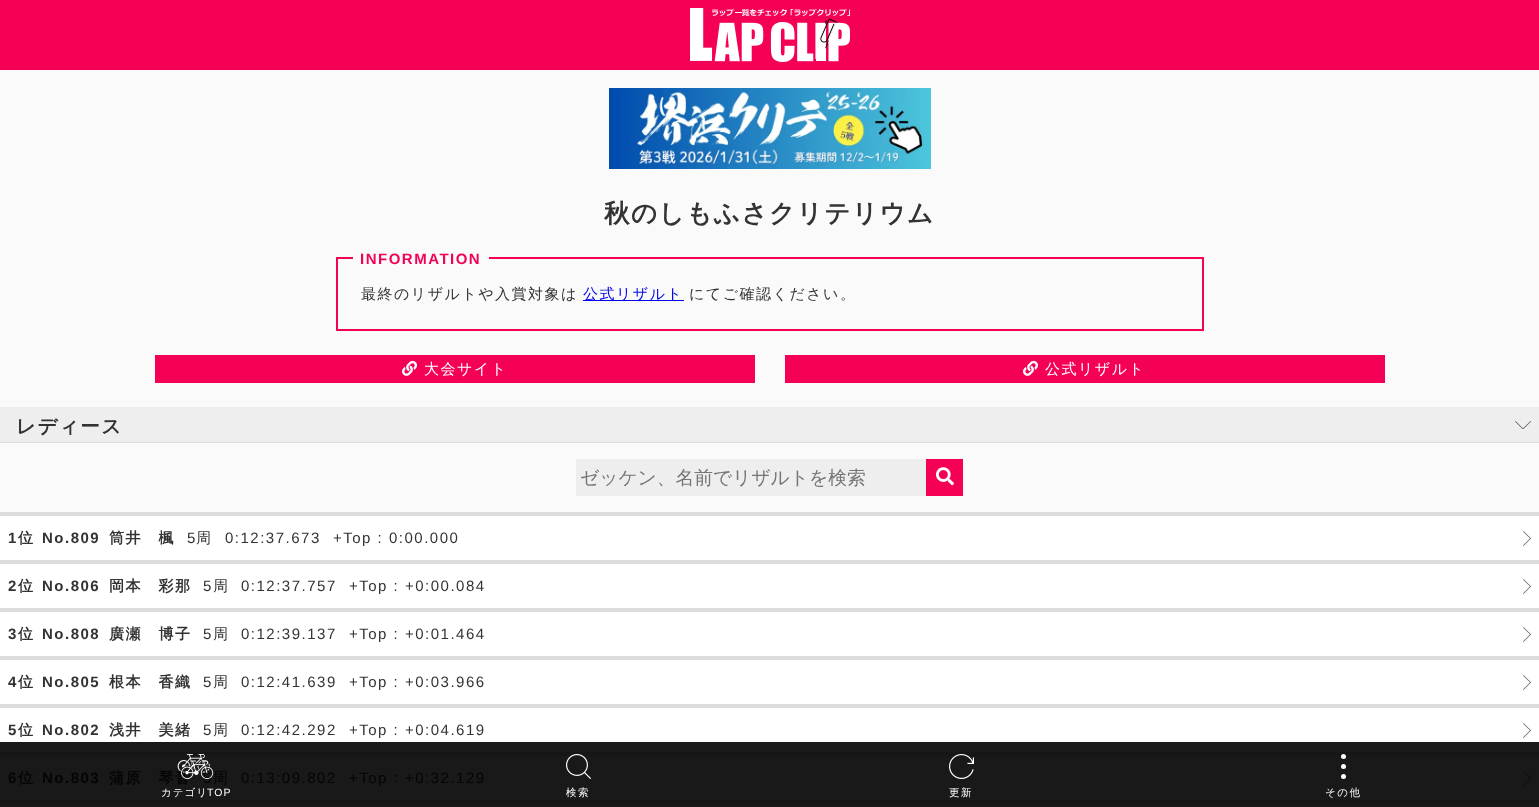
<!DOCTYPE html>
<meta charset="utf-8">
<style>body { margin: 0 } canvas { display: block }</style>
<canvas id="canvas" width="1539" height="807"></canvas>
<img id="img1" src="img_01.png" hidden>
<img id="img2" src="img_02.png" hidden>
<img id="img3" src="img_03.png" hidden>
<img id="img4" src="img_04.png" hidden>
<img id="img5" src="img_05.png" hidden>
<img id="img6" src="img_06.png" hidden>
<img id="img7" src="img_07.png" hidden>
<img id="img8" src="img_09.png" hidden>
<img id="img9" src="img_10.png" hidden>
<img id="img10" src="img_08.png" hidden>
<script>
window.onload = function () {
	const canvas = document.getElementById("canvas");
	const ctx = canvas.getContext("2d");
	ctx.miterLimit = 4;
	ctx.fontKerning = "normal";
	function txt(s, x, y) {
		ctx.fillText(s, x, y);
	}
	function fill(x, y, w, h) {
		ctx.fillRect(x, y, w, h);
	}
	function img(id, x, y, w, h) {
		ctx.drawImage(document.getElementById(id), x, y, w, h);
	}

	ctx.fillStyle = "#FAFAFA";
	fill(0, 0, 1539, 807);
	ctx.fillStyle = "#F50057";
	fill(0, 0, 1539, 70);
	img("img1", 690, 8, 160, 54);
	img("img2", 609, 88, 322, 81);
	ctx.strokeStyle = "#F50057";
	ctx.lineWidth = 2;
	ctx.strokeRect(337, 258, 866, 72);
	ctx.fillStyle = "#FAFAFA";
	fill(353, 257, 136, 2);
	ctx.fillStyle = "#0000EE";
	fill(583, 300, 101, 1);
	ctx.fillStyle = "#F50057";
	fill(155, 355, 600, 28);
	img("img3", 402, 360, 15, 16);
	fill(785, 355, 600, 28);
	img("img3", 1023, 360, 15, 16);
	ctx.fillStyle = "#DDDDDD";
	fill(0, 442, 1539, 1);
	ctx.fillStyle = "#EEEEEE";
	fill(0, 407, 1539, 35);
	img("img4", 1515, 421, 16, 8);
	fill(576, 459, 350, 37);
	ctx.fillStyle = "#F50057";
	fill(926, 459, 37, 37);
	img("img5", 936, 467, 18, 19);
	ctx.fillStyle = "#DDDDDD";
	fill(0, 512, 1539, 4);
	ctx.fillStyle = "#FFFFFF";
	fill(0, 516, 1539, 44);
	ctx.fillStyle = "#DDDDDD";
	fill(0, 560, 1539, 4);
	img("img6", 1523, 531, 8, 15);
	ctx.fillStyle = "#FFFFFF";
	fill(0, 564, 1539, 44);
	ctx.fillStyle = "#DDDDDD";
	fill(0, 608, 1539, 4);
	img("img6", 1523, 579, 8, 15);
	ctx.fillStyle = "#FFFFFF";
	fill(0, 612, 1539, 44);
	ctx.fillStyle = "#DDDDDD";
	fill(0, 656, 1539, 4);
	img("img6", 1523, 627, 8, 15);
	ctx.fillStyle = "#FFFFFF";
	fill(0, 660, 1539, 44);
	ctx.fillStyle = "#DDDDDD";
	fill(0, 704, 1539, 4);
	img("img6", 1523, 675, 8, 15);
	ctx.fillStyle = "#FFFFFF";
	fill(0, 708, 1539, 34);
	ctx.fillStyle = "#191919";
	fill(0, 742, 1539, 10);
	ctx.fillStyle = "#161616";
	fill(0, 752, 1539, 4);
	img("img6", 1523, 723, 8, 15);
	ctx.fillStyle = "#191919";
	fill(0, 756, 1539, 44);
	ctx.fillStyle = "#161616";
	fill(0, 800, 1539, 4);
	img("img7", 1523, 771, 8, 15);
	ctx.fillStyle = "#191919";
	fill(0, 804, 1539, 3);
	img("img8", 566, 754, 25, 25);
	img("img9", 949, 754, 25, 25);
	ctx.fillStyle = "#FFFFFF";
	ctx.beginPath();
	ctx.arc(1343.5, 756.5, 2.5, 0, Math.PI * 2);
	ctx.fill();
	ctx.beginPath();
	ctx.arc(1343.5, 766.5, 2.5, 0, Math.PI * 2);
	ctx.fill();
	ctx.beginPath();
	ctx.arc(1343.5, 776.5, 2.5, 0, Math.PI * 2);
	ctx.fill();
	ctx.letterSpacing = "1.5px";
	ctx.font = "bold 25.5px WenQuanYi Zen Hei";
	ctx.fillStyle = "#333333";
	txt("秋のしもふさクリテリウム", 604, 222);
	ctx.font = "bold 15px Liberation Sans";
	ctx.fillStyle = "#F50057";
	txt("INFORMATION", 360, 264);
	ctx.font = "500 15px WenQuanYi Zen Hei";
	ctx.fillStyle = "#333333";
	txt("最終のリザルトや入賞対象は", 361, 299);
	ctx.fillStyle = "#0000EE";
	txt("公式リザルト", 583, 299);
	ctx.fillStyle = "#333333";
	txt("にてご確認ください。", 689, 299);
	ctx.fillStyle = "#FFFFFF";
	txt("大会サイト", 424, 374);
	txt("公式リザルト", 1045, 374);
	ctx.font = "bold 19.5px WenQuanYi Zen Hei";
	ctx.fillStyle = "#333333";
	txt("レディース", 16, 433);
	ctx.letterSpacing = "0px";
	ctx.font = "500 18.75px WenQuanYi Zen Hei";
	ctx.fillStyle = "#757575";
	txt("ゼッケン、名前でリザルトを検索", 580, 484);
	ctx.letterSpacing = "1.5px";
	ctx.font = "bold 15px Liberation Sans";
	ctx.fillStyle = "#333333";
	txt("1", 8, 543);
	ctx.font = "bold 15px WenQuanYi Zen Hei";
	txt("位", 18, 543);
	ctx.font = "bold 15px Liberation Sans";
	txt("No.809", 42, 543);
	ctx.font = "bold 15px WenQuanYi Zen Hei";
	txt("筒井　楓", 109, 543);
	ctx.font = "15px Liberation Sans";
	txt("5", 187, 543);
	ctx.font = "500 15px WenQuanYi Zen Hei";
	txt("周", 196, 543);
	ctx.font = "15px Liberation Sans";
	txt("0:12:37.673", 225, 543);
	txt("+Top : 0:00.000", 333, 543);
	ctx.font = "bold 15px Liberation Sans";
	txt("2", 8, 591);
	ctx.font = "bold 15px WenQuanYi Zen Hei";
	txt("位", 18, 591);
	ctx.font = "bold 15px Liberation Sans";
	txt("No.806", 42, 591);
	ctx.font = "bold 15px WenQuanYi Zen Hei";
	txt("岡本　彩那", 109, 591);
	ctx.font = "15px Liberation Sans";
	txt("5", 203, 591);
	ctx.font = "500 15px WenQuanYi Zen Hei";
	txt("周", 213, 591);
	ctx.font = "15px Liberation Sans";
	txt("0:12:37.757", 241, 591);
	txt("+Top : +0:00.084", 349, 591);
	ctx.font = "bold 15px Liberation Sans";
	txt("3", 8, 639);
	ctx.font = "bold 15px WenQuanYi Zen Hei";
	txt("位", 18, 639);
	ctx.font = "bold 15px Liberation Sans";
	txt("No.808", 42, 639);
	ctx.font = "bold 15px WenQuanYi Zen Hei";
	txt("廣瀬　博子", 109, 639);
	ctx.font = "15px Liberation Sans";
	txt("5", 203, 639);
	ctx.font = "500 15px WenQuanYi Zen Hei";
	txt("周", 213, 639);
	ctx.font = "15px Liberation Sans";
	txt("0:12:39.137", 241, 639);
	txt("+Top : +0:01.464", 349, 639);
	ctx.font = "bold 15px Liberation Sans";
	txt("4", 8, 687);
	ctx.font = "bold 15px WenQuanYi Zen Hei";
	txt("位", 18, 687);
	ctx.font = "bold 15px Liberation Sans";
	txt("No.805", 42, 687);
	ctx.font = "bold 15px WenQuanYi Zen Hei";
	txt("根本　香織", 109, 687);
	ctx.font = "15px Liberation Sans";
	txt("5", 203, 687);
	ctx.font = "500 15px WenQuanYi Zen Hei";
	txt("周", 213, 687);
	ctx.font = "15px Liberation Sans";
	txt("0:12:41.639", 241, 687);
	txt("+Top : +0:03.966", 349, 687);
	ctx.font = "bold 15px Liberation Sans";
	txt("5", 8, 735);
	ctx.font = "bold 15px WenQuanYi Zen Hei";
	txt("位", 18, 735);
	ctx.font = "bold 15px Liberation Sans";
	txt("No.802", 42, 735);
	ctx.font = "bold 15px WenQuanYi Zen Hei";
	txt("浅井　美緒", 109, 735);
	ctx.font = "15px Liberation Sans";
	txt("5", 203, 735);
	ctx.font = "500 15px WenQuanYi Zen Hei";
	txt("周", 213, 735);
	ctx.font = "15px Liberation Sans";
	txt("0:12:42.292", 241, 735);
	txt("+Top : +0:04.619", 349, 735);
	ctx.font = "bold 15px Liberation Sans";
	ctx.fillStyle = "#050505";
	txt("6", 8, 783);
	ctx.font = "bold 15px WenQuanYi Zen Hei";
	txt("位", 18, 783);
	ctx.font = "bold 15px Liberation Sans";
	txt("No.803", 42, 783);
	ctx.font = "bold 15px WenQuanYi Zen Hei";
	txt("蒲原　琴音", 109, 783);
	ctx.font = "15px Liberation Sans";
	txt("5", 203, 783);
	ctx.font = "500 15px WenQuanYi Zen Hei";
	txt("周", 213, 783);
	ctx.font = "15px Liberation Sans";
	txt("0:13:09.802", 241, 783);
	txt("+Top : +0:32.129", 349, 783);
	img("img10", 177, 754, 37, 25);
	ctx.letterSpacing = "1px";
	ctx.font = "500 10.5px WenQuanYi Zen Hei";
	ctx.fillStyle = "#FFFFFF";
	txt("カテゴリ", 161, 796);
	ctx.font = "10.5px Liberation Sans";
	txt("TOP", 207, 796);
	ctx.letterSpacing = "1.5px";
	ctx.font = "500 10.5px WenQuanYi Zen Hei";
	txt("検索", 566, 796);
	txt("更新", 949, 796);
	txt("その他", 1325, 796);
};
</script>
